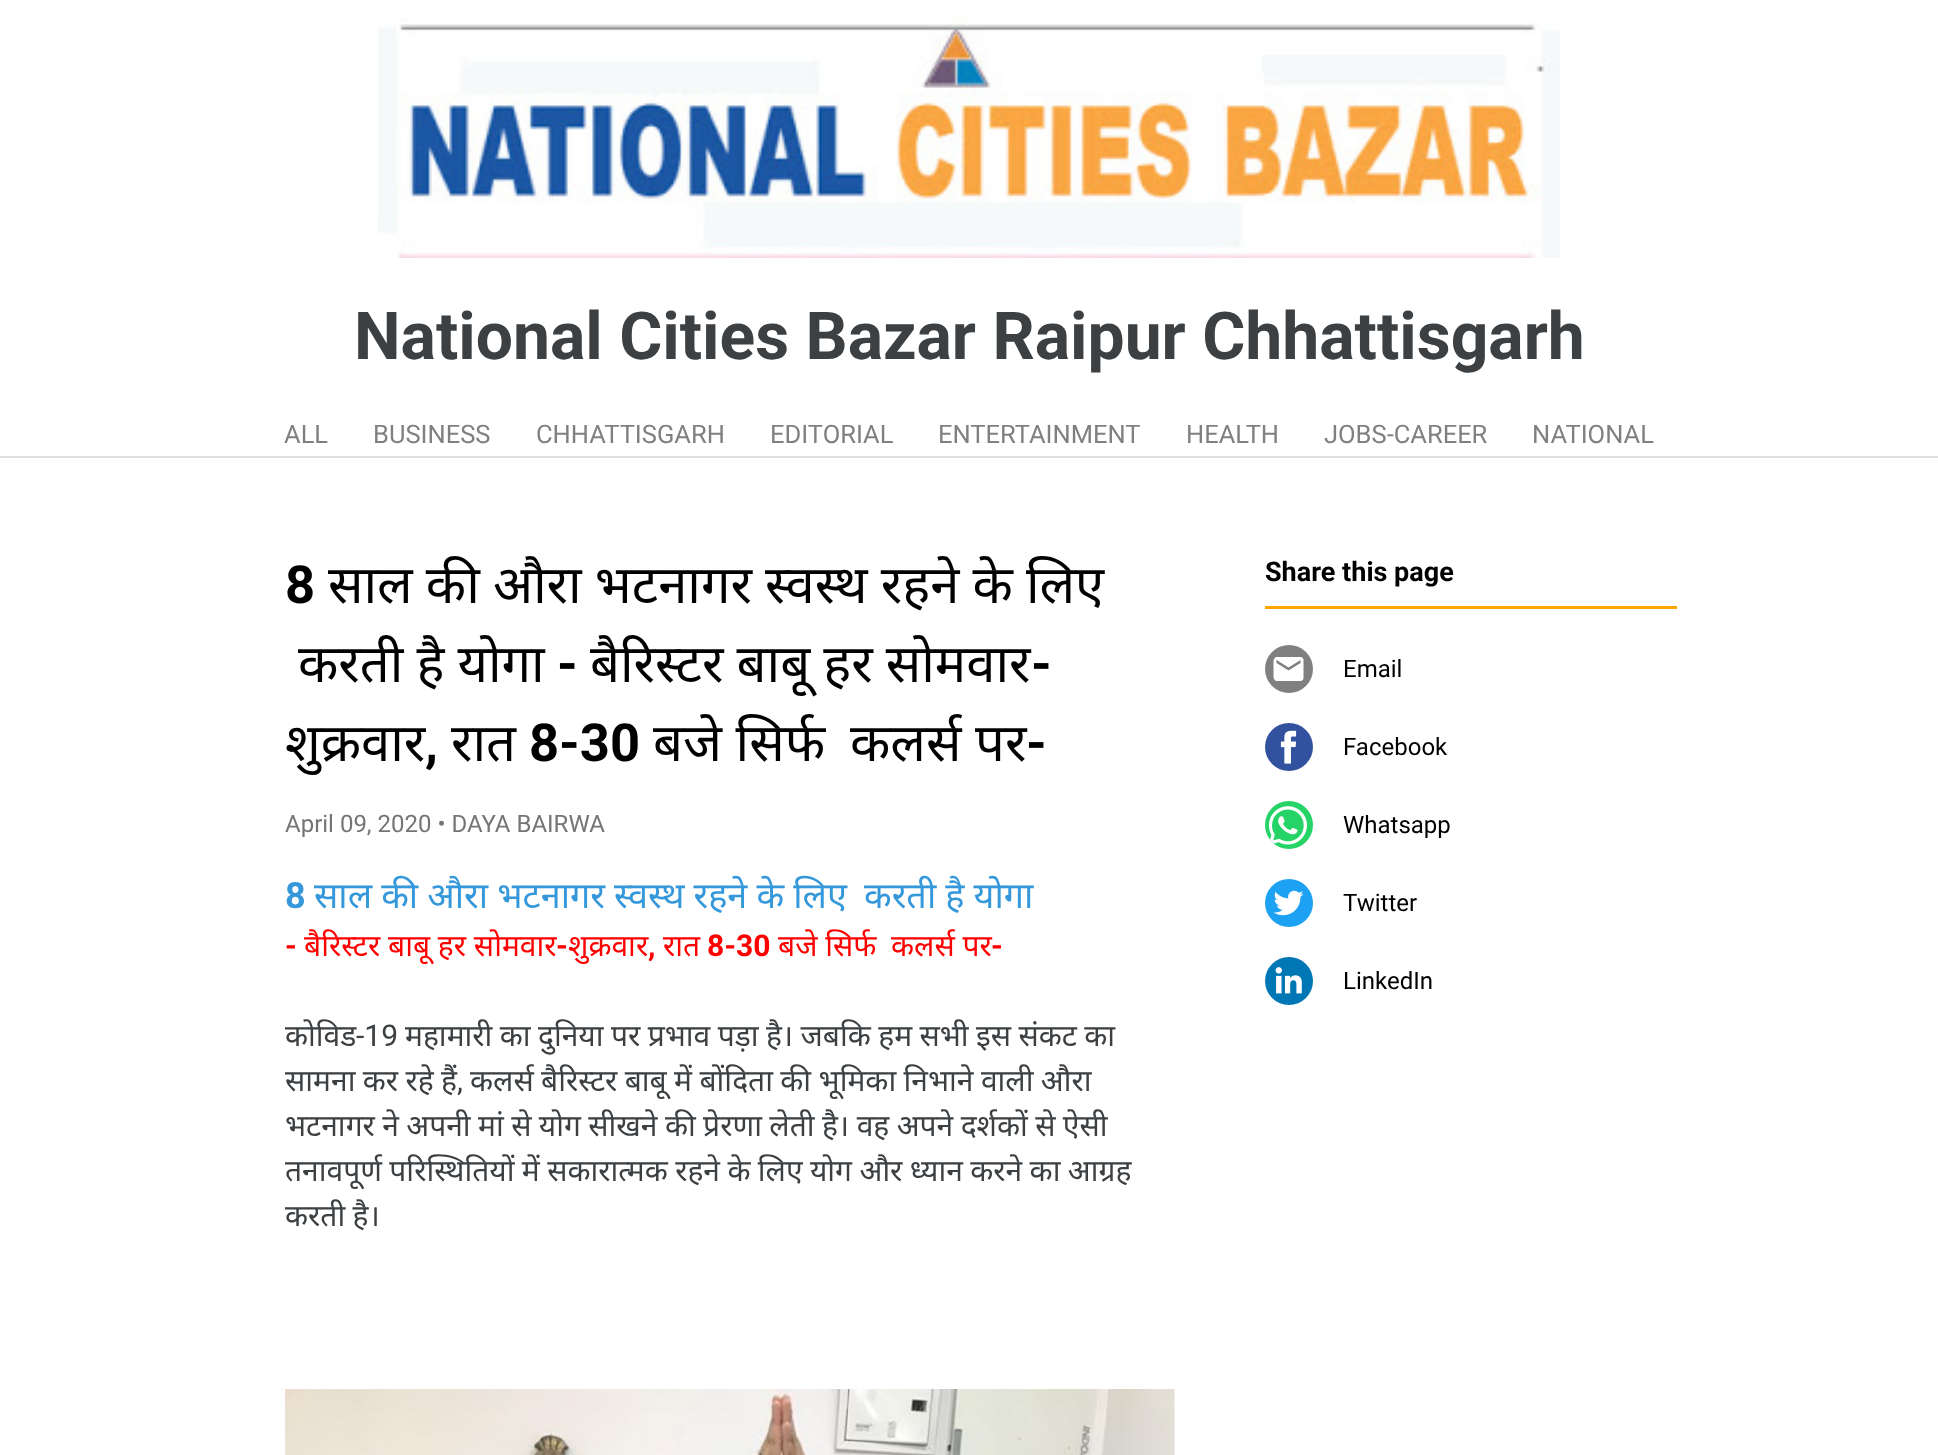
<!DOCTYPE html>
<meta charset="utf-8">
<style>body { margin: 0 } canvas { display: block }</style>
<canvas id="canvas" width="1938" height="1455"></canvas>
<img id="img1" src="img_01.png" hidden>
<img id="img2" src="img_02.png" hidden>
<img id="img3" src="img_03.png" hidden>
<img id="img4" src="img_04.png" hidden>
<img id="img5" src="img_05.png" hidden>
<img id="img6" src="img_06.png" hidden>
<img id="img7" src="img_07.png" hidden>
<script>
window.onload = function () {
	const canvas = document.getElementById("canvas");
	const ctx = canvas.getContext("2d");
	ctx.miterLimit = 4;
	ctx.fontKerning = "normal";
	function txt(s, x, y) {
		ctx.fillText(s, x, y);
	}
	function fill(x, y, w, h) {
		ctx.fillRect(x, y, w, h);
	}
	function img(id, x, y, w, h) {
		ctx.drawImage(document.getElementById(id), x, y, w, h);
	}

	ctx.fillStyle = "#FFFFFF";
	fill(0, 0, 1938, 1455);
	ctx.fillStyle = "#E0E0E0";
	fill(0, 456, 1938, 2);
	img("img1", 378, 18, 1182, 240);
	img("img2", 285, 1389, 890, 66);
	ctx.fillStyle = "#FFA500";
	fill(1265, 606, 412, 3);
	ctx.fillStyle = "#808080";
	ctx.beginPath();
	ctx.arc(1289, 669, 24, 0, Math.PI * 2);
	ctx.fill();
	img("img3", 1273, 657, 31, 24);
	ctx.fillStyle = "#32529F";
	ctx.beginPath();
	ctx.arc(1289, 747, 24, 0, Math.PI * 2);
	ctx.fill();
	img("img4", 1280, 730, 17, 34);
	ctx.fillStyle = "#25D366";
	ctx.beginPath();
	ctx.arc(1289, 825, 24, 0, Math.PI * 2);
	ctx.fill();
	img("img5", 1268, 806, 39, 39);
	ctx.fillStyle = "#1DA1F2";
	ctx.beginPath();
	ctx.arc(1289, 903, 24, 0, Math.PI * 2);
	ctx.fill();
	img("img6", 1273, 890, 31, 26);
	ctx.fillStyle = "#0077B5";
	ctx.beginPath();
	ctx.arc(1289, 981, 24, 0, Math.PI * 2);
	ctx.fill();
	img("img7", 1275, 967, 27, 27);
	ctx.font = "bold 66px Roboto";
	ctx.fillStyle = "#3C4043";
	txt("National Cities Bazar Raipur Chhattisgarh", 354, 359);
	ctx.font = "25.5px Roboto";
	ctx.fillStyle = "#808080";
	txt("ALL", 284, 443);
	txt("BUSINESS", 373, 443);
	txt("CHHATTISGARH", 536, 443);
	txt("EDITORIAL", 770, 443);
	txt("ENTERTAINMENT", 938, 443);
	txt("HEALTH", 1186, 443);
	txt("JOBS-CAREER", 1324, 443);
	txt("NATIONAL", 1532, 443);
	ctx.font = "bold 52.5px Roboto";
	ctx.fillStyle = "#000000";
	txt("8", 285, 603);
	ctx.wordSpacing = "-0.5px";
	ctx.font = "52.5px Noto Sans";
	txt("साल की औरा भटनागर स्वस्थ रहने के लिए", 328, 603);
	txt("करती है योगा", 298, 682);
	ctx.wordSpacing = "0px";
	ctx.font = "bold 52.5px Roboto";
	txt("-", 557, 682);
	ctx.wordSpacing = "-0.5px";
	ctx.font = "52.5px Noto Sans";
	txt("बैरिस्टर बाबू हर सोमवार", 590, 682);
	ctx.wordSpacing = "0px";
	ctx.font = "bold 52.5px Roboto";
	txt("-", 1031, 682);
	ctx.save();
	ctx.beginPath();
	ctx.rect(285, 548, 890, 237);
	ctx.clip();
	ctx.font = "52.5px Noto Sans";
	txt("शुक्रवार", 285, 761);
	ctx.restore();
	ctx.font = "52.5px Noto Sans";
	txt("रात", 451, 761);
	ctx.font = "bold 52.5px Roboto";
	txt("8-30", 529, 761);
	ctx.font = "52.5px Noto Sans";
	txt("बजे सिर्फ", 653, 761);
	txt("कलर्स पर", 850, 761);
	ctx.font = "bold 52.5px Roboto";
	txt("-", 1026, 761);
	txt(",", 425, 761);
	ctx.font = "24px Roboto";
	ctx.fillStyle = "#757575";
	txt("April 09, 2020 • DAYA BAIRWA", 285, 832);
	ctx.font = "bold 36px Roboto";
	ctx.fillStyle = "#3598DB";
	txt("8", 285, 908);
	ctx.wordSpacing = "-0.25px";
	ctx.font = "36px Noto Sans";
	txt("साल की औरा भटनागर स्वस्थ रहने के लिए", 314, 908);
	txt("करती है योगा", 864, 908);
	ctx.wordSpacing = "0px";
	ctx.font = "bold 30px Roboto";
	ctx.fillStyle = "#FF0000";
	txt("-", 285, 956);
	ctx.font = "30px Noto Sans";
	txt("बैरिस्टर बाबू हर सोमवार", 304, 956);
	txt("रात", 663, 956);
	ctx.font = "bold 30px Roboto";
	txt("8-30", 707, 956);
	ctx.font = "30px Noto Sans";
	txt("बजे सिर्फ", 778, 956);
	txt("कलर्स पर", 891, 956);
	ctx.font = "bold 30px Roboto";
	txt("-", 556, 956);
	ctx.font = "30px Noto Sans";
	txt("शुक्रवार", 568, 956);
	ctx.font = "bold 30px Roboto";
	txt("-", 991, 956);
	txt(",", 648, 956);
	ctx.font = "30px Noto Sans";
	ctx.fillStyle = "#3C4043";
	txt("कोविड", 285, 1046);
	ctx.font = "30px Roboto";
	txt("-19", 356, 1046);
	ctx.wordSpacing = "-0.4px";
	ctx.font = "30px Noto Sans";
	txt("महामारी का दुनिया पर प्रभाव पड़ा है। जबकि हम सभी इस संकट का", 405, 1046);
	txt("सामना कर रहे हैं", 285, 1091);
	ctx.wordSpacing = "0px";
	ctx.font = "30px Roboto";
	txt(",", 457, 1091);
	ctx.wordSpacing = "-0.4px";
	ctx.font = "30px Noto Sans";
	txt("कलर्स बैरिस्टर बाबू में बोंदिता की भूमिका निभाने वाली औरा", 470, 1091);
	txt("भटनागर ने अपनी मां से योग सीखने की प्रेरणा लेती है। वह अपने दर्शकों से ऐसी", 285, 1136);
	txt("तनावपूर्ण परिस्थितियों में सकारात्मक रहने के लिए योग और ध्यान करने का आग्रह", 285, 1181);
	txt("करती है।", 285, 1226);
	ctx.wordSpacing = "0px";
	ctx.font = "bold 27px Roboto";
	ctx.fillStyle = "#000000";
	txt("Share this page", 1265, 581);
	ctx.font = "24px Roboto";
	txt("Email", 1343, 677);
	txt("Facebook", 1343, 755);
	txt("Whatsapp", 1343, 833);
	txt("Twitter", 1343, 911);
	txt("LinkedIn", 1343, 989);
};
</script>
